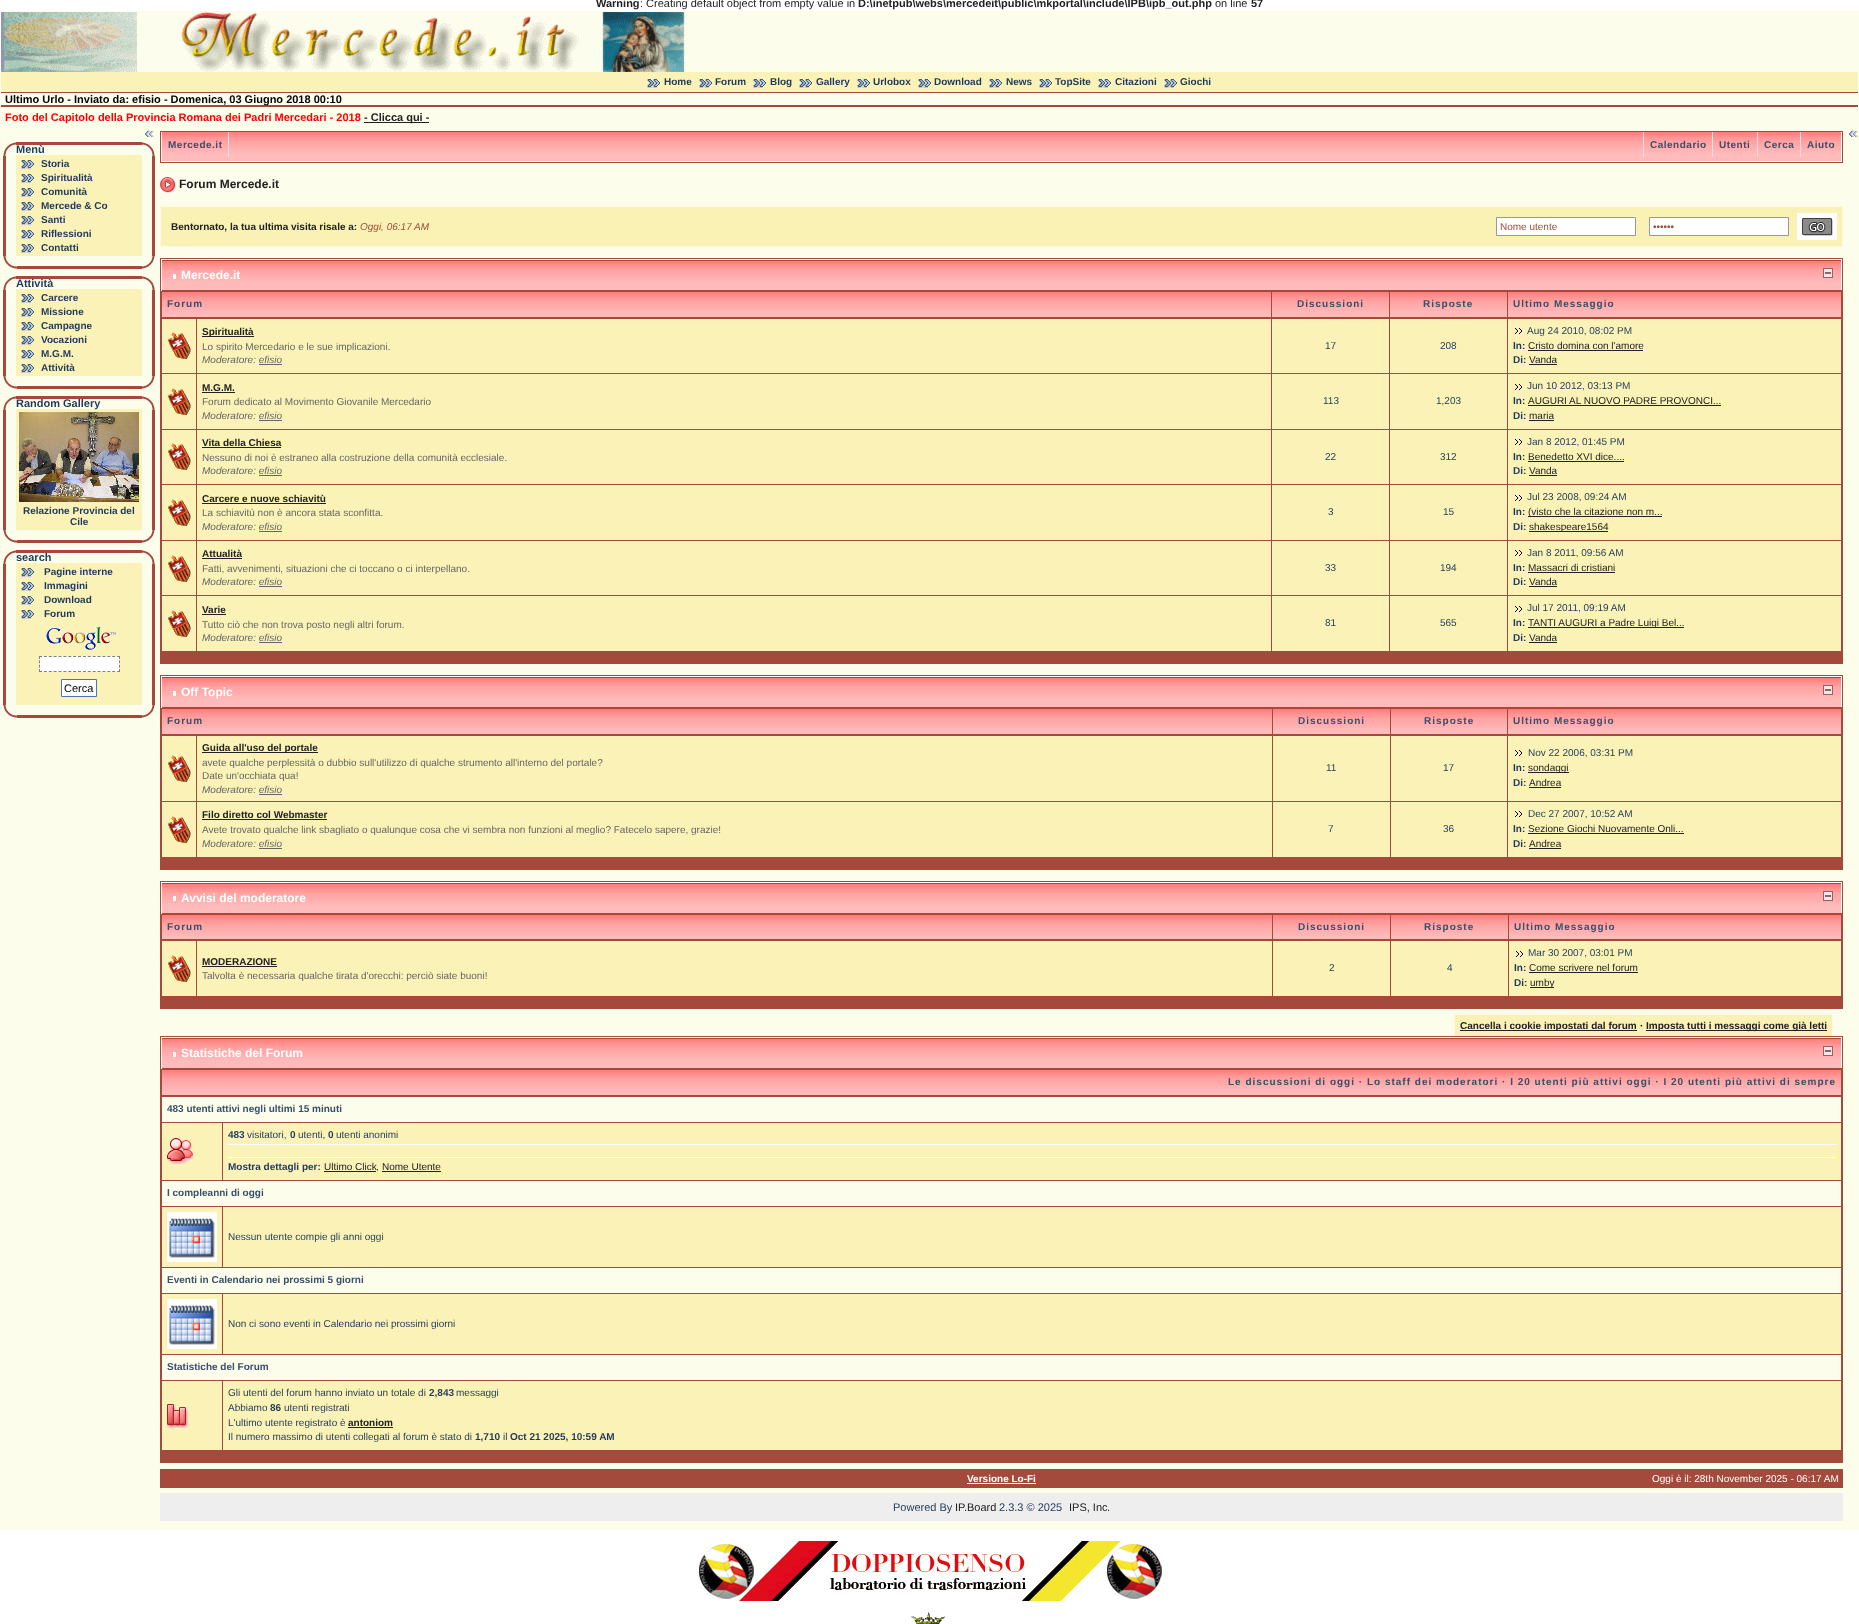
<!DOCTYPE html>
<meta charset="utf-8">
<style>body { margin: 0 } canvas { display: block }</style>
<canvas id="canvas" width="1859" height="1624"></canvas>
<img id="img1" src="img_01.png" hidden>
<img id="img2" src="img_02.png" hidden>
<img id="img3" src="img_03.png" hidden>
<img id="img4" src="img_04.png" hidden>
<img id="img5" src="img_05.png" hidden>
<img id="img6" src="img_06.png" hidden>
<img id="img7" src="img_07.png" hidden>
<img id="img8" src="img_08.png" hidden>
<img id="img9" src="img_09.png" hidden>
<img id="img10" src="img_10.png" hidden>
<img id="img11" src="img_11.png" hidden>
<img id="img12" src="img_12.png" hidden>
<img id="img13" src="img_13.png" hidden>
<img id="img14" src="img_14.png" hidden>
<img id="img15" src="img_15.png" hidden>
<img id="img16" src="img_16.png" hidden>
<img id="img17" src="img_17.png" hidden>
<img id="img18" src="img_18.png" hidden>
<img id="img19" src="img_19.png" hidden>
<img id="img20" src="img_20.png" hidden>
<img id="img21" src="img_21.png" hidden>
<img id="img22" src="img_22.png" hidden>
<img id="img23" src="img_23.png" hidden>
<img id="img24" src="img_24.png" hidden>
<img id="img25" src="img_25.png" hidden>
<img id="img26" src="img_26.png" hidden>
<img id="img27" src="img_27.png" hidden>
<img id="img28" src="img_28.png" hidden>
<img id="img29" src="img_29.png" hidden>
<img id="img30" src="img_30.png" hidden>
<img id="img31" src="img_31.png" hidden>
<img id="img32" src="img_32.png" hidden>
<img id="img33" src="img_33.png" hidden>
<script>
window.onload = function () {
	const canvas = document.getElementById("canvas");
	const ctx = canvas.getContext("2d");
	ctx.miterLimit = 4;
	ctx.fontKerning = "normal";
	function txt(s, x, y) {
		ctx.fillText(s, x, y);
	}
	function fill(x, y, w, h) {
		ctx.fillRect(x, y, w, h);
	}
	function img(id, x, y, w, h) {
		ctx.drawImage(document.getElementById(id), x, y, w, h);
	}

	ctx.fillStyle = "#FFFFFF";
	fill(0, 0, 1859, 1624);
	ctx.fillStyle = "#FDFDEC";
	fill(0, 11, 1859, 1519);
	img("img1", 1, 12, 684, 60);
	ctx.fillStyle = "#FBF2B7";
	fill(1, 72, 1857, 20);
	img("img2", 647, 79, 13, 9);
	img("img2", 699, 79, 13, 9);
	img("img2", 753, 79, 13, 9);
	img("img2", 799, 79, 13, 9);
	img("img2", 857, 79, 13, 9);
	img("img2", 918, 79, 13, 9);
	img("img2", 989, 79, 13, 9);
	img("img2", 1039, 79, 13, 9);
	img("img2", 1098, 79, 13, 9);
	img("img2", 1164, 79, 13, 9);
	img("img3", 1, 92, 1857, 15);
	ctx.fillStyle = "#222222";
	fill(364, 122, 65, 1);
	img("img4", 1849, 130, 9, 7);
	img("img4", 145, 130, 9, 7);
	img("img5", 3, 142, 13, 13);
	ctx.fillStyle = "#A4493B";
	fill(16, 142, 126, 3);
	img("img6", 142, 142, 13, 13);
	fill(3, 155, 3, 101);
	img("img7", 3, 155, 3, 1);
	ctx.fillStyle = "#FBF2B7";
	fill(16, 155, 126, 101);
	img("img2", 21, 160, 13, 9);
	img("img2", 21, 174, 13, 9);
	img("img2", 21, 188, 13, 9);
	img("img2", 21, 202, 13, 9);
	img("img2", 21, 216, 13, 9);
	img("img2", 21, 230, 13, 9);
	img("img2", 21, 244, 13, 9);
	ctx.fillStyle = "#A4493B";
	fill(152, 155, 3, 101);
	img("img7", 152, 155, 3, 1);
	img("img8", 3, 256, 13, 13);
	fill(16, 266, 126, 3);
	img("img9", 16, 266, 1, 3);
	img("img10", 142, 256, 13, 13);
	img("img5", 3, 276, 13, 13);
	fill(16, 276, 126, 3);
	img("img6", 142, 276, 13, 13);
	fill(3, 289, 3, 87);
	img("img7", 3, 289, 3, 1);
	ctx.fillStyle = "#FBF2B7";
	fill(16, 289, 126, 87);
	img("img2", 21, 294, 13, 9);
	img("img2", 21, 308, 13, 9);
	img("img2", 21, 322, 13, 9);
	img("img2", 21, 336, 13, 9);
	img("img2", 21, 350, 13, 9);
	img("img2", 21, 364, 13, 9);
	ctx.fillStyle = "#A4493B";
	fill(152, 289, 3, 87);
	img("img7", 152, 289, 3, 1);
	img("img8", 3, 376, 13, 13);
	fill(16, 386, 126, 3);
	img("img9", 16, 386, 1, 3);
	img("img10", 142, 376, 13, 13);
	img("img5", 3, 396, 13, 13);
	fill(16, 396, 126, 3);
	img("img6", 142, 396, 13, 13);
	fill(3, 409, 3, 121);
	img("img7", 3, 409, 3, 1);
	ctx.fillStyle = "#FBF2B7";
	fill(16, 409, 126, 121);
	img("img11", 19, 412, 120, 90);
	ctx.fillStyle = "#A4493B";
	fill(152, 409, 3, 121);
	img("img7", 152, 409, 3, 1);
	img("img8", 3, 530, 13, 13);
	fill(16, 540, 126, 3);
	img("img9", 16, 540, 1, 3);
	img("img10", 142, 530, 13, 13);
	img("img5", 3, 550, 13, 13);
	fill(16, 550, 126, 3);
	img("img6", 142, 550, 13, 13);
	fill(3, 563, 3, 142);
	img("img7", 3, 563, 3, 1);
	ctx.fillStyle = "#FBF2B7";
	fill(16, 563, 126, 142);
	img("img2", 21, 568, 13, 9);
	img("img2", 21, 582, 13, 9);
	img("img2", 21, 596, 13, 9);
	img("img2", 21, 610, 13, 9);
	img("img12", 46, 627, 70, 23);
	ctx.fillStyle = "#FFFFFF";
	fill(39, 656, 81, 16);
	ctx.beginPath();
	ctx.moveTo(39, 656.5);
	ctx.lineTo(120, 656.5);
	ctx.strokeStyle = "#808080";
	ctx.setLineDash([3, 1.88]);
	ctx.stroke();
	ctx.beginPath();
	ctx.moveTo(119.5, 656);
	ctx.lineTo(119.5, 672);
	ctx.setLineDash([3, 1.33]);
	ctx.stroke();
	ctx.beginPath();
	ctx.moveTo(39, 671.5);
	ctx.lineTo(120, 671.5);
	ctx.setLineDash([3, 1.88]);
	ctx.stroke();
	ctx.beginPath();
	ctx.moveTo(39.5, 656);
	ctx.lineTo(39.5, 672);
	ctx.setLineDash([3, 1.33]);
	ctx.stroke();
	ctx.beginPath();
	ctx.rect(61.5, 679.5, 35, 17);
	ctx.fill();
	ctx.strokeStyle = "#4C77B6";
	ctx.setLineDash([]);
	ctx.stroke();
	ctx.fillStyle = "#A4493B";
	fill(152, 563, 3, 142);
	img("img7", 152, 563, 3, 1);
	img("img8", 3, 705, 13, 13);
	fill(16, 715, 126, 3);
	img("img9", 16, 715, 1, 3);
	img("img10", 142, 705, 13, 13);
	ctx.strokeStyle = "#A34B3B";
	ctx.strokeRect(160.5, 131.5, 1682, 31);
	img("img13", 162, 132, 1679, 29);
	ctx.fillStyle = "#FFFFFF";
	fill(1841, 132, 1, 30);
	fill(161, 161, 1681, 1);
	fill(161, 132, 1, 30);
	ctx.fillStyle = "#DCE3EE";
	fill(228, 132, 1, 25);
	fill(1643, 132, 1, 25);
	fill(1712, 132, 1, 25);
	fill(1757, 132, 1, 25);
	fill(1800, 132, 1, 25);
	img("img14", 160, 177, 16, 16);
	ctx.fillStyle = "#FAF1B4";
	ctx.beginPath();
	ctx.rect(160.5, 206.5, 1682, 40);
	ctx.fill();
	ctx.strokeStyle = "#FFF8E6";
	ctx.stroke();
	ctx.fillStyle = "#FFFFFF";
	ctx.beginPath();
	ctx.rect(1496.5, 217.5, 139, 18);
	ctx.fill();
	ctx.strokeStyle = "#999999";
	ctx.stroke();
	ctx.beginPath();
	ctx.rect(1649.5, 217.5, 139, 18);
	ctx.fill();
	ctx.stroke();
	fill(1797, 213, 40, 27);
	img("img15", 1802, 218, 31, 18);
	ctx.fillStyle = "#A4493B";
	fill(161, 291, 1681, 372);
	ctx.strokeStyle = "#A34B3B";
	ctx.strokeRect(160.5, 258.5, 1682, 405);
	img("img16", 162, 260, 1679, 30);
	ctx.fillStyle = "#FFFFFF";
	fill(161, 259, 1681, 1);
	fill(1841, 259, 1, 32);
	ctx.fillStyle = "#A6483A";
	fill(161, 290, 1681, 1);
	ctx.fillStyle = "#FFFFFF";
	fill(161, 259, 1, 32);
	fill(173, 274, 3, 5);
	img("img17", 1823, 268, 10, 10);
	img("img18", 162, 292, 1109, 25);
	img("img19", 1272, 292, 117, 25);
	img("img19", 1390, 292, 117, 25);
	img("img20", 1508, 292, 333, 25);
	ctx.fillStyle = "#FBF2B7";
	fill(162, 319, 34, 54);
	img("img21", 167, 332, 24, 27);
	fill(197, 319, 1074, 54);
	ctx.fillStyle = "#222222";
	fill(202, 336, 52, 1);
	ctx.fillStyle = "#666666";
	fill(259, 364, 23, 1);
	ctx.fillStyle = "#FBF2B7";
	fill(1272, 319, 117, 54);
	fill(1390, 319, 117, 54);
	fill(1508, 319, 333, 54);
	img("img22", 1515, 328, 7, 6);
	ctx.fillStyle = "#222222";
	fill(1528, 350, 115, 1);
	fill(1529, 364, 28, 1);
	ctx.fillStyle = "#FBF2B7";
	fill(162, 374, 34, 55);
	img("img21", 167, 388, 24, 27);
	fill(197, 374, 1074, 55);
	ctx.fillStyle = "#222222";
	fill(202, 392, 33, 1);
	ctx.fillStyle = "#666666";
	fill(259, 420, 23, 1);
	ctx.fillStyle = "#FBF2B7";
	fill(1272, 374, 117, 55);
	fill(1390, 374, 117, 55);
	fill(1508, 374, 333, 55);
	img("img22", 1515, 384, 7, 6);
	ctx.fillStyle = "#222222";
	fill(1528, 405, 193, 1);
	fill(1529, 420, 25, 1);
	ctx.fillStyle = "#FBF2B7";
	fill(162, 430, 34, 54);
	img("img21", 167, 443, 24, 27);
	fill(197, 430, 1074, 54);
	ctx.fillStyle = "#222222";
	fill(202, 447, 79, 1);
	ctx.fillStyle = "#666666";
	fill(259, 475, 23, 1);
	ctx.fillStyle = "#FBF2B7";
	fill(1272, 430, 117, 54);
	fill(1390, 430, 117, 54);
	fill(1508, 430, 333, 54);
	img("img22", 1515, 439, 7, 6);
	ctx.fillStyle = "#222222";
	fill(1528, 461, 96, 1);
	fill(1529, 475, 28, 1);
	ctx.fillStyle = "#FBF2B7";
	fill(162, 485, 34, 55);
	img("img21", 167, 499, 24, 27);
	fill(197, 485, 1074, 55);
	ctx.fillStyle = "#222222";
	fill(202, 503, 124, 1);
	ctx.fillStyle = "#666666";
	fill(259, 531, 23, 1);
	ctx.fillStyle = "#FBF2B7";
	fill(1272, 485, 117, 55);
	fill(1390, 485, 117, 55);
	fill(1508, 485, 333, 55);
	img("img22", 1515, 495, 7, 6);
	ctx.fillStyle = "#222222";
	fill(1528, 516, 134, 1);
	fill(1529, 531, 79, 1);
	ctx.fillStyle = "#FBF2B7";
	fill(162, 541, 34, 54);
	img("img21", 167, 555, 24, 27);
	fill(197, 541, 1074, 54);
	ctx.fillStyle = "#222222";
	fill(202, 558, 40, 1);
	ctx.fillStyle = "#666666";
	fill(259, 586, 23, 1);
	ctx.fillStyle = "#FBF2B7";
	fill(1272, 541, 117, 54);
	fill(1390, 541, 117, 54);
	fill(1508, 541, 333, 54);
	img("img22", 1515, 550, 7, 6);
	ctx.fillStyle = "#222222";
	fill(1528, 572, 87, 1);
	fill(1529, 586, 28, 1);
	ctx.fillStyle = "#FBF2B7";
	fill(162, 596, 34, 55);
	img("img21", 167, 610, 24, 27);
	fill(197, 596, 1074, 55);
	ctx.fillStyle = "#222222";
	fill(202, 614, 24, 1);
	ctx.fillStyle = "#666666";
	fill(259, 642, 23, 1);
	ctx.fillStyle = "#FBF2B7";
	fill(1272, 596, 117, 55);
	fill(1390, 596, 117, 55);
	fill(1508, 596, 333, 55);
	img("img22", 1515, 606, 7, 6);
	ctx.fillStyle = "#222222";
	fill(1528, 627, 156, 1);
	fill(1529, 642, 28, 1);
	ctx.fillStyle = "#A4493B";
	fill(161, 708, 1681, 161);
	ctx.strokeRect(160.5, 675.5, 1682, 194);
	img("img16", 162, 677, 1679, 30);
	ctx.fillStyle = "#FFFFFF";
	fill(161, 676, 1681, 1);
	fill(1841, 676, 1, 32);
	ctx.fillStyle = "#A6483A";
	fill(161, 707, 1681, 1);
	ctx.fillStyle = "#FFFFFF";
	fill(161, 676, 1, 32);
	fill(173, 691, 3, 5);
	img("img17", 1823, 685, 10, 10);
	img("img23", 162, 709, 1110, 25);
	img("img19", 1273, 709, 117, 25);
	img("img24", 1391, 709, 116, 25);
	img("img20", 1508, 709, 333, 25);
	ctx.fillStyle = "#FBF2B7";
	fill(162, 736, 34, 65);
	img("img21", 167, 755, 24, 27);
	fill(197, 736, 1075, 65);
	ctx.fillStyle = "#222222";
	fill(202, 752, 116, 1);
	ctx.fillStyle = "#666666";
	fill(259, 794, 23, 1);
	ctx.fillStyle = "#FBF2B7";
	fill(1273, 736, 117, 65);
	fill(1391, 736, 116, 65);
	fill(1508, 736, 333, 65);
	img("img22", 1515, 750, 7, 6);
	ctx.fillStyle = "#222222";
	fill(1528, 772, 41, 1);
	fill(1529, 787, 32, 1);
	ctx.fillStyle = "#FBF2B7";
	fill(162, 802, 34, 55);
	img("img21", 167, 816, 24, 27);
	fill(197, 802, 1075, 55);
	ctx.fillStyle = "#222222";
	fill(202, 819, 125, 1);
	ctx.fillStyle = "#666666";
	fill(259, 848, 23, 1);
	ctx.fillStyle = "#FBF2B7";
	fill(1273, 802, 117, 55);
	fill(1391, 802, 116, 55);
	fill(1508, 802, 333, 55);
	img("img22", 1515, 811, 7, 6);
	ctx.fillStyle = "#222222";
	fill(1528, 833, 156, 1);
	fill(1529, 848, 32, 1);
	ctx.fillStyle = "#A4493B";
	fill(161, 914, 1681, 94);
	ctx.strokeRect(160.5, 881.5, 1682, 127);
	img("img16", 162, 883, 1679, 30);
	ctx.fillStyle = "#FFFFFF";
	fill(161, 882, 1681, 1);
	fill(1841, 882, 1, 32);
	ctx.fillStyle = "#A6483A";
	fill(161, 913, 1681, 1);
	ctx.fillStyle = "#FFFFFF";
	fill(161, 882, 1, 32);
	fill(173, 896, 3, 5);
	img("img17", 1823, 891, 10, 10);
	img("img25", 162, 915, 1110, 24);
	img("img26", 1273, 915, 117, 24);
	img("img26", 1391, 915, 117, 24);
	img("img27", 1509, 915, 332, 24);
	ctx.fillStyle = "#FBF2B7";
	fill(162, 941, 34, 55);
	img("img21", 167, 955, 24, 27);
	fill(197, 941, 1075, 55);
	ctx.fillStyle = "#222222";
	fill(202, 966, 75, 1);
	ctx.fillStyle = "#FBF2B7";
	fill(1273, 941, 117, 55);
	fill(1391, 941, 117, 55);
	fill(1509, 941, 332, 55);
	img("img22", 1516, 951, 7, 6);
	ctx.fillStyle = "#222222";
	fill(1529, 972, 109, 1);
	fill(1530, 987, 24, 1);
	ctx.fillStyle = "#FFF8E6";
	fill(1454, 1014, 379, 1);
	fill(1454, 1014, 1, 22);
	ctx.fillStyle = "#FAF1B4";
	fill(1455, 1015, 377, 21);
	ctx.fillStyle = "#222222";
	fill(1460, 1030, 177, 1);
	ctx.fillStyle = "#FFF8E6";
	fill(1832, 1014, 1, 22);
	ctx.fillStyle = "#222222";
	fill(1646, 1030, 181, 1);
	ctx.fillStyle = "#A4493B";
	fill(161, 1069, 1681, 393);
	ctx.strokeRect(160.5, 1036.5, 1682, 426);
	img("img16", 162, 1038, 1679, 30);
	ctx.fillStyle = "#FFFFFF";
	fill(161, 1037, 1681, 1);
	fill(1841, 1037, 1, 32);
	ctx.fillStyle = "#A6483A";
	fill(161, 1068, 1681, 1);
	ctx.fillStyle = "#FFFFFF";
	fill(161, 1037, 1, 32);
	fill(173, 1052, 3, 5);
	img("img17", 1823, 1046, 10, 10);
	img("img28", 162, 1070, 1679, 25);
	ctx.fillStyle = "#FDFDEC";
	fill(162, 1097, 1679, 25);
	ctx.fillStyle = "#FBF2B7";
	fill(162, 1123, 60, 57);
	img("img29", 167, 1138, 26, 26);
	fill(223, 1123, 1618, 57);
	ctx.fillStyle = "#FFFFFF";
	fill(228, 1144, 1608, 1);
	fill(228, 1157, 1608, 1);
	ctx.fillStyle = "#222222";
	fill(324, 1171, 52, 1);
	fill(382, 1171, 59, 1);
	ctx.fillStyle = "#FDFDEC";
	fill(162, 1181, 1679, 25);
	ctx.fillStyle = "#FBF2B7";
	fill(162, 1207, 60, 60);
	img("img30", 167, 1212, 50, 50);
	fill(223, 1207, 1618, 60);
	ctx.fillStyle = "#FDFDEC";
	fill(162, 1268, 1679, 25);
	ctx.fillStyle = "#FBF2B7";
	fill(162, 1294, 60, 60);
	img("img30", 167, 1299, 50, 50);
	fill(223, 1294, 1618, 60);
	ctx.fillStyle = "#FDFDEC";
	fill(162, 1355, 1679, 25);
	ctx.fillStyle = "#FBF2B7";
	fill(162, 1381, 60, 69);
	img("img31", 167, 1404, 21, 24);
	fill(223, 1381, 1618, 69);
	ctx.fillStyle = "#222222";
	fill(348, 1427, 45, 1);
	ctx.fillStyle = "#A4493B";
	fill(160, 1469, 1683, 19);
	ctx.fillStyle = "#FFFFFF";
	fill(967, 1483, 69, 1);
	ctx.fillStyle = "#EEEEEE";
	fill(160, 1493, 1683, 28);
	img("img32", 696, 1541, 466, 60);
	img("img33", 911, 1612, 34, 12);
	ctx.font = "bold 11px Liberation Sans";
	ctx.fillStyle = "#222222";
	txt("Warning", 596, 7);
	ctx.font = "11px Liberation Sans";
	txt(": Creating default object from empty value in", 640, 7);
	ctx.font = "bold 11px Liberation Sans";
	txt("D:\\inetpub\\webs\\mercedeit\\public\\mkportal\\include\\IPB\\ipb_out.php", 858, 7);
	ctx.font = "11px Liberation Sans";
	txt("on line", 1215, 7);
	ctx.font = "bold 11px Liberation Sans";
	txt("57", 1251, 7);
	ctx.font = "bold 10px Liberation Sans";
	ctx.fillStyle = "#1F3A59";
	txt("Home", 664, 85);
	txt("Forum", 715, 85);
	txt("Blog", 770, 85);
	txt("Gallery", 816, 85);
	txt("Urlobox", 873, 85);
	txt("Download", 934, 85);
	txt("News", 1006, 85);
	txt("TopSite", 1055, 85);
	txt("Citazioni", 1115, 85);
	txt("Giochi", 1180, 85);
	ctx.font = "bold 11px Liberation Sans";
	ctx.fillStyle = "#000000";
	txt("Ultimo Urlo - Inviato da: efisio - Domenica, 03 Giugno 2018 00:10", 5, 103);
	ctx.fillStyle = "#FF0000";
	txt("Foto del Capitolo della Provincia Romana dei Padri Mercedari - 2018", 5, 121);
	ctx.fillStyle = "#222222";
	txt("- Clicca qui -", 364, 121);
	ctx.fillStyle = "#1F3A59";
	txt("Menù", 16, 153);
	ctx.font = "bold 10px Liberation Sans";
	txt("Storia", 41, 167);
	txt("Spiritualità", 41, 181);
	txt("Comunità", 41, 195);
	txt("Mercede & Co", 41, 209);
	txt("Santi", 41, 223);
	txt("Riflessioni", 41, 237);
	txt("Contatti", 41, 251);
	ctx.font = "bold 11px Liberation Sans";
	txt("Attività", 16, 287);
	ctx.font = "bold 10px Liberation Sans";
	txt("Carcere", 41, 301);
	txt("Missione", 41, 315);
	txt("Campagne", 41, 329);
	txt("Vocazioni", 41, 343);
	txt("M.G.M.", 41, 357);
	txt("Attività", 41, 371);
	ctx.font = "bold 11px Liberation Sans";
	txt("Random Gallery", 16, 407);
	ctx.font = "bold 10px Liberation Sans";
	txt("Relazione Provincia del", 23, 514);
	txt("Cile", 70, 525);
	ctx.font = "bold 11px Liberation Sans";
	txt("search", 16, 561);
	ctx.font = "bold 10px Liberation Sans";
	txt("Pagine interne", 44, 575);
	txt("Immagini", 44, 589);
	txt("Download", 44, 603);
	txt("Forum", 44, 617);
	ctx.font = "11px Liberation Sans";
	ctx.fillStyle = "#000000";
	txt("Cerca", 64, 692);
	ctx.letterSpacing = "0.5px";
	ctx.font = "bold 10px Liberation Sans";
	ctx.fillStyle = "#3A4F6C";
	txt("Mercede.it", 168, 148);
	txt("Calendario", 1650, 148);
	txt("Utenti", 1719, 148);
	txt("Cerca", 1764, 148);
	txt("Aiuto", 1807, 148);
	ctx.letterSpacing = "0px";
	ctx.font = "bold 12px Liberation Sans";
	ctx.fillStyle = "#222222";
	txt("Forum Mercede.it", 179, 188);
	ctx.font = "bold 10px Liberation Sans";
	txt("Bentornato, la tua ultima visita risale a:", 171, 230);
	ctx.font = "italic 10px Liberation Sans";
	ctx.fillStyle = "#A34B3B";
	txt("Oggi, 06:17 AM", 360, 230);
	ctx.font = "10px Liberation Sans";
	txt("Nome utente", 1500, 230);
	txt("••••••", 1653, 230);
	ctx.font = "bold 12px Liberation Sans";
	ctx.fillStyle = "#FFFFFF";
	txt("Mercede.it", 181, 279);
	ctx.letterSpacing = "1px";
	ctx.font = "bold 10px Liberation Sans";
	ctx.fillStyle = "#3A4F6C";
	txt("Forum", 167, 307);
	txt("Discussioni", 1297, 307);
	txt("Risposte", 1423, 307);
	txt("Ultimo Messaggio", 1513, 307);
	ctx.letterSpacing = "0px";
	ctx.fillStyle = "#222222";
	txt("Spiritualità", 202, 335);
	ctx.font = "10px Liberation Sans";
	ctx.fillStyle = "#666666";
	txt("Lo spirito Mercedario e le sue implicazioni.", 202, 350);
	ctx.font = "italic 10px Liberation Sans";
	txt("Moderatore: efisio", 202, 363);
	ctx.font = "10px Liberation Sans";
	ctx.fillStyle = "#1F3A59";
	txt("17", 1325, 349);
	txt("208", 1440, 349);
	txt("Aug 24 2010, 08:02 PM", 1527, 334);
	ctx.font = "bold 10px Liberation Sans";
	txt("In:", 1513, 349);
	ctx.font = "10px Liberation Sans";
	ctx.fillStyle = "#222222";
	txt("Cristo domina con l'amore", 1528, 349);
	ctx.font = "bold 10px Liberation Sans";
	ctx.fillStyle = "#1F3A59";
	txt("Di:", 1513, 363);
	ctx.font = "10px Liberation Sans";
	ctx.fillStyle = "#222222";
	txt("Vanda", 1529, 363);
	ctx.font = "bold 10px Liberation Sans";
	txt("M.G.M.", 202, 391);
	ctx.font = "10px Liberation Sans";
	ctx.fillStyle = "#666666";
	txt("Forum dedicato al Movimento Giovanile Mercedario", 202, 405);
	ctx.font = "italic 10px Liberation Sans";
	txt("Moderatore: efisio", 202, 419);
	ctx.font = "10px Liberation Sans";
	ctx.fillStyle = "#1F3A59";
	txt("113", 1323, 404);
	txt("1,203", 1436, 404);
	txt("Jun 10 2012, 03:13 PM", 1527, 389);
	ctx.font = "bold 10px Liberation Sans";
	txt("In:", 1513, 404);
	ctx.font = "10px Liberation Sans";
	ctx.fillStyle = "#222222";
	txt("AUGURI AL NUOVO PADRE PROVONCI...", 1528, 404);
	ctx.font = "bold 10px Liberation Sans";
	ctx.fillStyle = "#1F3A59";
	txt("Di:", 1513, 419);
	ctx.font = "10px Liberation Sans";
	ctx.fillStyle = "#222222";
	txt("maria", 1529, 419);
	ctx.font = "bold 10px Liberation Sans";
	txt("Vita della Chiesa", 202, 446);
	ctx.font = "10px Liberation Sans";
	ctx.fillStyle = "#666666";
	txt("Nessuno di noi è estraneo alla costruzione della comunità ecclesiale.", 202, 461);
	ctx.font = "italic 10px Liberation Sans";
	txt("Moderatore: efisio", 202, 474);
	ctx.font = "10px Liberation Sans";
	ctx.fillStyle = "#1F3A59";
	txt("22", 1325, 460);
	txt("312", 1440, 460);
	txt("Jan 8 2012, 01:45 PM", 1527, 445);
	ctx.font = "bold 10px Liberation Sans";
	txt("In:", 1513, 460);
	ctx.font = "10px Liberation Sans";
	ctx.fillStyle = "#222222";
	txt("Benedetto XVI dice....", 1528, 460);
	ctx.font = "bold 10px Liberation Sans";
	ctx.fillStyle = "#1F3A59";
	txt("Di:", 1513, 474);
	ctx.font = "10px Liberation Sans";
	ctx.fillStyle = "#222222";
	txt("Vanda", 1529, 474);
	ctx.font = "bold 10px Liberation Sans";
	txt("Carcere e nuove schiavitù", 202, 502);
	ctx.font = "10px Liberation Sans";
	ctx.fillStyle = "#666666";
	txt("La schiavitù non è ancora stata sconfitta.", 202, 516);
	ctx.font = "italic 10px Liberation Sans";
	txt("Moderatore: efisio", 202, 530);
	ctx.font = "10px Liberation Sans";
	ctx.fillStyle = "#1F3A59";
	txt("3", 1328, 515);
	txt("15", 1443, 515);
	txt("Jul 23 2008, 09:24 AM", 1527, 500);
	ctx.font = "bold 10px Liberation Sans";
	txt("In:", 1513, 515);
	ctx.font = "10px Liberation Sans";
	ctx.fillStyle = "#222222";
	txt("(visto che la citazione non m...", 1528, 515);
	ctx.font = "bold 10px Liberation Sans";
	ctx.fillStyle = "#1F3A59";
	txt("Di:", 1513, 530);
	ctx.font = "10px Liberation Sans";
	ctx.fillStyle = "#222222";
	txt("shakespeare1564", 1529, 530);
	ctx.font = "bold 10px Liberation Sans";
	txt("Attualità", 202, 557);
	ctx.font = "10px Liberation Sans";
	ctx.fillStyle = "#666666";
	txt("Fatti, avvenimenti, situazioni che ci toccano o ci interpellano.", 202, 572);
	ctx.font = "italic 10px Liberation Sans";
	txt("Moderatore: efisio", 202, 585);
	ctx.font = "10px Liberation Sans";
	ctx.fillStyle = "#1F3A59";
	txt("33", 1325, 571);
	txt("194", 1440, 571);
	txt("Jan 8 2011, 09:56 AM", 1527, 556);
	ctx.font = "bold 10px Liberation Sans";
	txt("In:", 1513, 571);
	ctx.font = "10px Liberation Sans";
	ctx.fillStyle = "#222222";
	txt("Massacri di cristiani", 1528, 571);
	ctx.font = "bold 10px Liberation Sans";
	ctx.fillStyle = "#1F3A59";
	txt("Di:", 1513, 585);
	ctx.font = "10px Liberation Sans";
	ctx.fillStyle = "#222222";
	txt("Vanda", 1529, 585);
	ctx.font = "bold 10px Liberation Sans";
	txt("Varie", 202, 613);
	ctx.font = "10px Liberation Sans";
	ctx.fillStyle = "#666666";
	txt("Tutto ciò che non trova posto negli altri forum.", 202, 628);
	ctx.font = "italic 10px Liberation Sans";
	txt("Moderatore: efisio", 202, 641);
	ctx.font = "10px Liberation Sans";
	ctx.fillStyle = "#1F3A59";
	txt("81", 1325, 626);
	txt("565", 1440, 626);
	txt("Jul 17 2011, 09:19 AM", 1527, 611);
	ctx.font = "bold 10px Liberation Sans";
	txt("In:", 1513, 626);
	ctx.font = "10px Liberation Sans";
	ctx.fillStyle = "#222222";
	txt("TANTI AUGURI a Padre Luigi Bel...", 1528, 626);
	ctx.font = "bold 10px Liberation Sans";
	ctx.fillStyle = "#1F3A59";
	txt("Di:", 1513, 641);
	ctx.font = "10px Liberation Sans";
	ctx.fillStyle = "#222222";
	txt("Vanda", 1529, 641);
	ctx.font = "bold 12px Liberation Sans";
	ctx.fillStyle = "#FFFFFF";
	txt("Off Topic", 181, 696);
	ctx.letterSpacing = "1px";
	ctx.font = "bold 10px Liberation Sans";
	ctx.fillStyle = "#3A4F6C";
	txt("Forum", 167, 724);
	txt("Discussioni", 1298, 724);
	txt("Risposte", 1424, 724);
	txt("Ultimo Messaggio", 1513, 724);
	ctx.letterSpacing = "0px";
	ctx.fillStyle = "#222222";
	txt("Guida all'uso del portale", 202, 751);
	ctx.font = "10px Liberation Sans";
	ctx.fillStyle = "#666666";
	txt("avete qualche perplessità o dubbio sull'utilizzo di qualche strumento all'interno del portale?", 202, 766);
	txt("Date un'occhiata qua!", 202, 779);
	ctx.font = "italic 10px Liberation Sans";
	txt("Moderatore: efisio", 202, 793);
	ctx.font = "10px Liberation Sans";
	ctx.fillStyle = "#1F3A59";
	txt("11", 1326, 771);
	txt("17", 1443, 771);
	txt("Nov 22 2006, 03:31 PM", 1528, 756);
	ctx.font = "bold 10px Liberation Sans";
	txt("In:", 1513, 771);
	ctx.font = "10px Liberation Sans";
	ctx.fillStyle = "#222222";
	txt("sondaggi", 1528, 771);
	ctx.font = "bold 10px Liberation Sans";
	ctx.fillStyle = "#1F3A59";
	txt("Di:", 1513, 786);
	ctx.font = "10px Liberation Sans";
	ctx.fillStyle = "#222222";
	txt("Andrea", 1529, 786);
	ctx.font = "bold 10px Liberation Sans";
	txt("Filo diretto col Webmaster", 202, 818);
	ctx.font = "10px Liberation Sans";
	ctx.fillStyle = "#666666";
	txt("Avete trovato qualche link sbagliato o qualunque cosa che vi sembra non funzioni al meglio? Fatecelo sapere, grazie!", 202, 833);
	ctx.font = "italic 10px Liberation Sans";
	txt("Moderatore: efisio", 202, 847);
	ctx.font = "10px Liberation Sans";
	ctx.fillStyle = "#1F3A59";
	txt("7", 1328, 832);
	txt("36", 1443, 832);
	txt("Dec 27 2007, 10:52 AM", 1528, 817);
	ctx.font = "bold 10px Liberation Sans";
	txt("In:", 1513, 832);
	ctx.font = "10px Liberation Sans";
	ctx.fillStyle = "#222222";
	txt("Sezione Giochi Nuovamente Onli...", 1528, 832);
	ctx.font = "bold 10px Liberation Sans";
	ctx.fillStyle = "#1F3A59";
	txt("Di:", 1513, 847);
	ctx.font = "10px Liberation Sans";
	ctx.fillStyle = "#222222";
	txt("Andrea", 1529, 847);
	ctx.font = "bold 12px Liberation Sans";
	ctx.fillStyle = "#FFFFFF";
	txt("Avvisi del moderatore", 181, 902);
	ctx.letterSpacing = "1px";
	ctx.font = "bold 10px Liberation Sans";
	ctx.fillStyle = "#3A4F6C";
	txt("Forum", 167, 930);
	txt("Discussioni", 1298, 930);
	txt("Risposte", 1424, 930);
	txt("Ultimo Messaggio", 1514, 930);
	ctx.letterSpacing = "0px";
	ctx.fillStyle = "#222222";
	txt("MODERAZIONE", 202, 965);
	ctx.font = "10px Liberation Sans";
	ctx.fillStyle = "#666666";
	txt("Talvolta è necessaria qualche tirata d'orecchi: perciò siate buoni!", 202, 979);
	ctx.fillStyle = "#1F3A59";
	txt("2", 1329, 971);
	txt("4", 1447, 971);
	txt("Mar 30 2007, 03:01 PM", 1528, 956);
	ctx.font = "bold 10px Liberation Sans";
	txt("In:", 1514, 971);
	ctx.font = "10px Liberation Sans";
	ctx.fillStyle = "#222222";
	txt("Come scrivere nel forum", 1529, 971);
	ctx.font = "bold 10px Liberation Sans";
	ctx.fillStyle = "#1F3A59";
	txt("Di:", 1514, 986);
	ctx.font = "10px Liberation Sans";
	ctx.fillStyle = "#222222";
	txt("umby", 1530, 986);
	ctx.font = "bold 10px Liberation Sans";
	txt("Cancella i cookie impostati dal forum", 1460, 1029);
	ctx.fillStyle = "#000000";
	txt("·", 1640, 1029);
	ctx.fillStyle = "#222222";
	txt("Imposta tutti i messaggi come già letti", 1646, 1029);
	ctx.font = "bold 12px Liberation Sans";
	ctx.fillStyle = "#FFFFFF";
	txt("Statistiche del Forum", 181, 1057);
	ctx.letterSpacing = "1px";
	ctx.font = "bold 10px Liberation Sans";
	ctx.fillStyle = "#3A4F6C";
	txt("Le discussioni di oggi · Lo staff dei moderatori · I 20 utenti più attivi oggi · I 20 utenti più attivi di sempre", 1228, 1085);
	ctx.letterSpacing = "0px";
	txt("483 utenti attivi negli ultimi 15 minuti", 167, 1112);
	ctx.fillStyle = "#1F3A59";
	txt("483", 228, 1138);
	ctx.font = "10px Liberation Sans";
	txt("visitatori,", 247, 1138);
	ctx.font = "bold 10px Liberation Sans";
	txt("0", 290, 1138);
	ctx.font = "10px Liberation Sans";
	txt("utenti,", 298, 1138);
	ctx.font = "bold 10px Liberation Sans";
	txt("0", 328, 1138);
	ctx.font = "10px Liberation Sans";
	txt("utenti anonimi", 336, 1138);
	ctx.font = "bold 10px Liberation Sans";
	txt("Mostra dettagli per:", 228, 1170);
	ctx.font = "10px Liberation Sans";
	ctx.fillStyle = "#222222";
	txt("Ultimo Click", 324, 1170);
	ctx.fillStyle = "#1F3A59";
	txt(",", 376, 1170);
	ctx.fillStyle = "#222222";
	txt("Nome Utente", 382, 1170);
	ctx.font = "bold 10px Liberation Sans";
	ctx.fillStyle = "#3A4F6C";
	txt("I compleanni di oggi", 167, 1196);
	ctx.font = "10px Liberation Sans";
	ctx.fillStyle = "#1F3A59";
	txt("Nessun utente compie gli anni oggi", 228, 1240);
	ctx.font = "bold 10px Liberation Sans";
	ctx.fillStyle = "#3A4F6C";
	txt("Eventi in Calendario nei prossimi 5 giorni", 167, 1283);
	ctx.font = "10px Liberation Sans";
	ctx.fillStyle = "#1F3A59";
	txt("Non ci sono eventi in Calendario nei prossimi giorni", 228, 1327);
	ctx.font = "bold 10px Liberation Sans";
	ctx.fillStyle = "#3A4F6C";
	txt("Statistiche del Forum", 167, 1370);
	ctx.font = "10px Liberation Sans";
	ctx.fillStyle = "#1F3A59";
	txt("Gli utenti del forum hanno inviato un totale di", 228, 1396);
	ctx.font = "bold 10px Liberation Sans";
	txt("2,843", 429, 1396);
	ctx.font = "10px Liberation Sans";
	txt("messaggi", 456, 1396);
	txt("Abbiamo", 228, 1411);
	ctx.font = "bold 10px Liberation Sans";
	txt("86", 270, 1411);
	ctx.font = "10px Liberation Sans";
	txt("utenti registrati", 284, 1411);
	txt("L'ultimo utente registrato è", 228, 1426);
	ctx.font = "bold 10px Liberation Sans";
	ctx.fillStyle = "#222222";
	txt("antoniom", 348, 1426);
	ctx.font = "10px Liberation Sans";
	ctx.fillStyle = "#1F3A59";
	txt("Il numero massimo di utenti collegati al forum è stato di", 228, 1440);
	ctx.font = "bold 10px Liberation Sans";
	txt("1,710", 475, 1440);
	ctx.font = "10px Liberation Sans";
	txt("il", 503, 1440);
	ctx.font = "bold 10px Liberation Sans";
	txt("Oct 21 2025, 10:59 AM", 510, 1440);
	ctx.fillStyle = "#FFFFFF";
	txt("Versione Lo-Fi", 967, 1482);
	ctx.font = "10px Liberation Sans";
	txt("Oggi è il: 28th November 2025 - 06:17 AM", 1652, 1482);
	ctx.font = "11px Liberation Sans";
	ctx.fillStyle = "#1F3A59";
	txt("Powered By", 893, 1511);
	ctx.fillStyle = "#222222";
	txt("IP.Board", 955, 1511);
	ctx.fillStyle = "#1F3A59";
	txt("2.3.3 © 2025", 999, 1511);
	ctx.fillStyle = "#222222";
	txt("IPS, Inc", 1069, 1511);
	ctx.fillStyle = "#1F3A59";
	txt(".", 1107, 1511);
};
</script>
